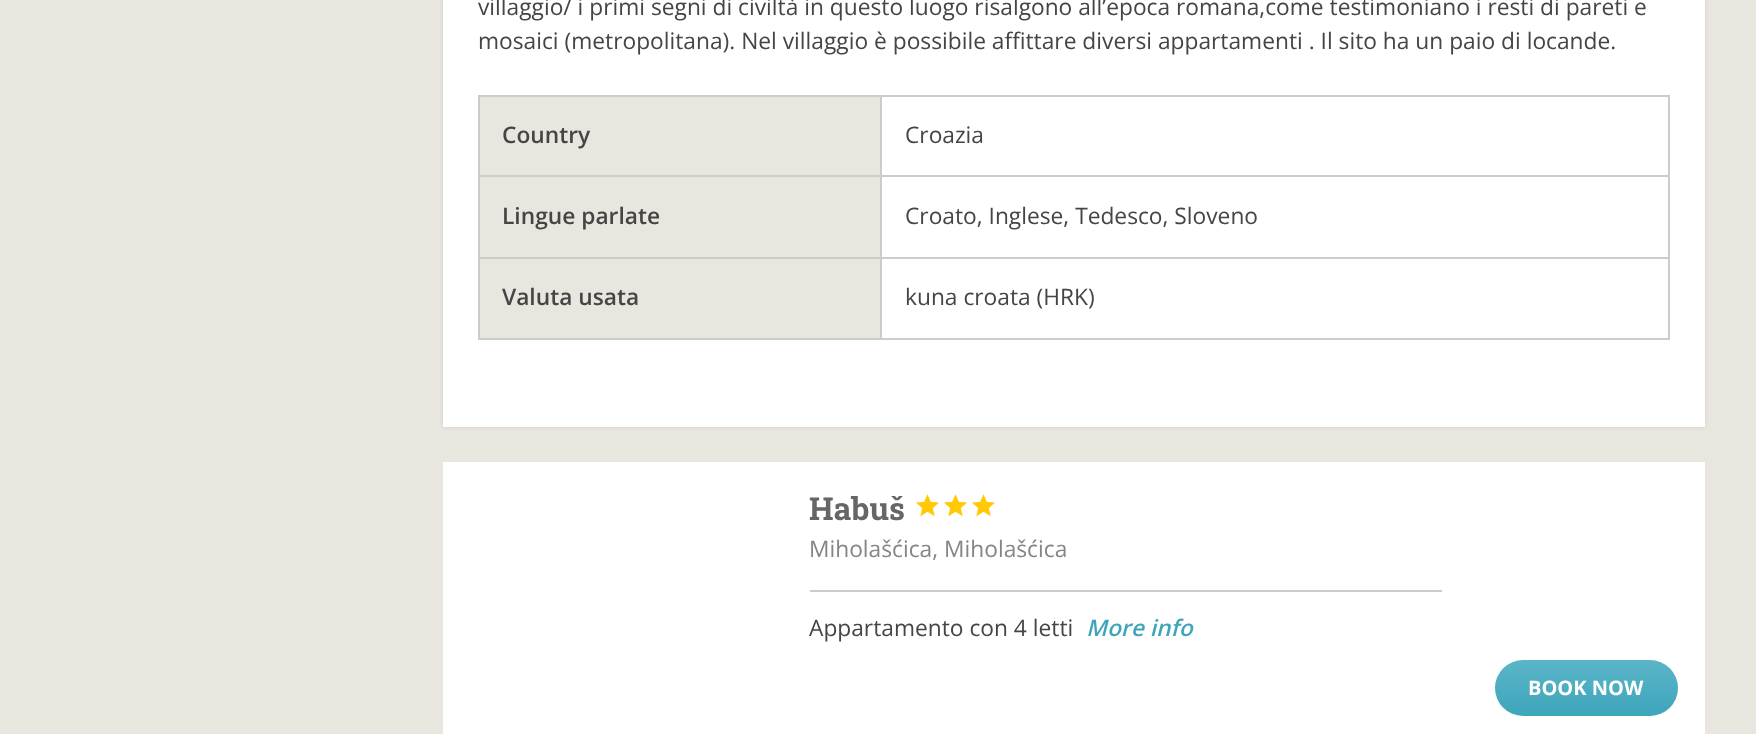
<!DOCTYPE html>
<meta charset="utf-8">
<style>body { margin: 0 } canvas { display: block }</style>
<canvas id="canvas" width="1756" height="734"></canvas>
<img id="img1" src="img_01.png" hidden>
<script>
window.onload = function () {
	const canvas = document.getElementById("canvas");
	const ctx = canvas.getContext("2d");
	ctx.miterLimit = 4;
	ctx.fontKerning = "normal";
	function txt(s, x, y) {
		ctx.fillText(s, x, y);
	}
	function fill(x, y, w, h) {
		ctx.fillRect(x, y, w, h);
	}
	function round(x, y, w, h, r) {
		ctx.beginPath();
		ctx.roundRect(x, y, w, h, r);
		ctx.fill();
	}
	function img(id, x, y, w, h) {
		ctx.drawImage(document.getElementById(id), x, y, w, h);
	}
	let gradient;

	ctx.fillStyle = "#E9E6E0";
	fill(0, 0, 1756, 734);
	ctx.fillStyle = "rgba(0, 0, 0, 0.1)";
	ctx.filter = "blur(2px)";
	ctx.beginPath();
	ctx.rect(443, -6, 1262, 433);
	ctx.fill();
	ctx.filter = "none";
	ctx.fillStyle = "#FFFFFF";
	fill(443, 0, 1262, 427);
	ctx.fillStyle = "#E9E6E0";
	fill(480, 97, 400, 78);
	ctx.fillStyle = "#CCCCCC";
	fill(880, 95, 790, 2);
	fill(880, 175, 790, 2);
	fill(880, 257, 790, 2);
	fill(1668, 257, 2, 83);
	fill(880, 338, 790, 2);
	fill(880, 257, 2, 83);
	fill(478, 257, 404, 2);
	fill(880, 175, 2, 84);
	fill(478, 175, 404, 2);
	fill(880, 95, 2, 82);
	fill(478, 95, 404, 2);
	fill(478, 338, 404, 2);
	fill(478, 257, 2, 83);
	fill(478, 175, 2, 84);
	fill(478, 95, 2, 82);
	fill(1668, 175, 2, 84);
	fill(1668, 95, 2, 82);
	ctx.fillStyle = "#E9E6E0";
	fill(480, 177, 400, 80);
	fill(480, 259, 400, 79);
	ctx.fillStyle = "#FFFFFF";
	fill(443, 462, 1262, 272);
	img("img1", 916, 494, 23, 23);
	img("img1", 944, 494, 23, 23);
	img("img1", 972, 494, 23, 23);
	ctx.fillStyle = "#CCCCCC";
	fill(810, 590, 632, 2);
	gradient = ctx.createLinearGradient(1586, 660, 1586, 716);
	gradient.addColorStop(0, "#5BB5C8");
	gradient.addColorStop(1, "#3EA5BB");
	ctx.fillStyle = gradient;
	round(1495, 660, 183, 56, 28);
	ctx.font = "22.75px Open Sans";
	ctx.fillStyle = "#454545";
	txt("villaggio/ i primi segni di civiltà in questo luogo risalgono all’epoca romana,come testimoniano i resti di pareti e", 478, 15);
	txt("mosaici (metropolitana). Nel villaggio è possibile affittare diversi appartamenti . Il sito ha un paio di locande.", 478, 49);
	ctx.font = "600 22.75px Open Sans";
	txt("Country", 502, 143);
	ctx.font = "22.75px Open Sans";
	txt("Croazia", 905, 143);
	ctx.font = "600 22.75px Open Sans";
	txt("Lingue parlate", 502, 224);
	ctx.font = "22.75px Open Sans";
	txt("Croato, Inglese, Tedesco, Sloveno", 905, 224);
	ctx.font = "600 22.75px Open Sans";
	txt("Valuta usata", 502, 305);
	ctx.font = "22.75px Open Sans";
	txt("kuna croata (HRK)", 905, 305);
	ctx.font = "bold 31.5px Roboto Slab";
	ctx.fillStyle = "#666666";
	txt("Habuš", 809, 520);
	ctx.font = "22.75px Open Sans";
	ctx.fillStyle = "#858585";
	txt("Miholašćica, Miholašćica", 809, 557);
	ctx.fillStyle = "#454545";
	txt("Appartamento con 4 letti", 809, 636);
	ctx.font = "italic 600 22.75px Open Sans";
	ctx.fillStyle = "#3EA5BB";
	txt("More info", 1086, 636);
	ctx.font = "bold 20px Open Sans";
	ctx.fillStyle = "#FFFFFF";
	txt("BOOK NOW", 1528, 695);
};
</script>
